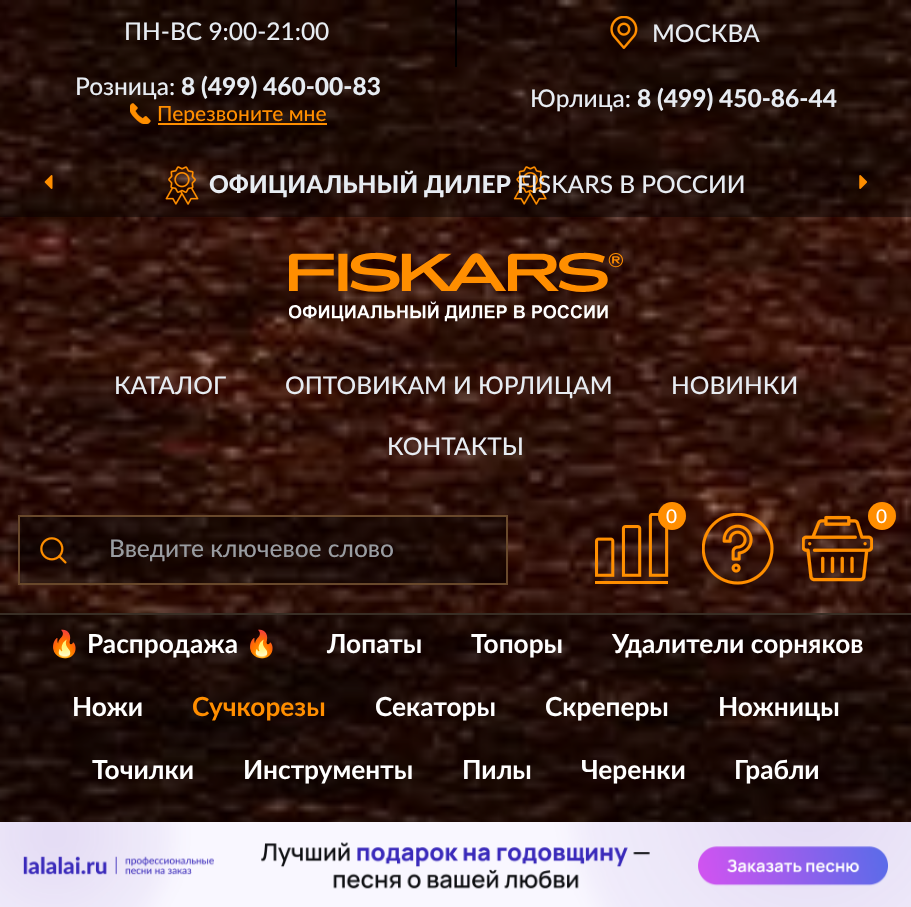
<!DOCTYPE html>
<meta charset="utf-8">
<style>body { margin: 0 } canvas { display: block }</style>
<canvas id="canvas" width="911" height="907"></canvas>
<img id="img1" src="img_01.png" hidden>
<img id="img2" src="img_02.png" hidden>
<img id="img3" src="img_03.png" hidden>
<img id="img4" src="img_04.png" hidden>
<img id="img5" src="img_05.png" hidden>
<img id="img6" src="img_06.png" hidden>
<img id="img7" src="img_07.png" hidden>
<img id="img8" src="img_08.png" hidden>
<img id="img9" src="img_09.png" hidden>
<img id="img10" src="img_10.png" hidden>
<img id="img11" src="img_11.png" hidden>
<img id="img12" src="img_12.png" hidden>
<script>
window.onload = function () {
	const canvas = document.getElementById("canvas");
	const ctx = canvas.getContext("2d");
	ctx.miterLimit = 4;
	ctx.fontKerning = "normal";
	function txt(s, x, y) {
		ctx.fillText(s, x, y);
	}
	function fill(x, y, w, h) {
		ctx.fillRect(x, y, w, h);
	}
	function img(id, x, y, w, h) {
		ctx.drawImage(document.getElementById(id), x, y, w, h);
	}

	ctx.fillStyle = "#FFFFFF";
	fill(0, 0, 911, 907);
	img("img1", 0, 0, 911, 822);
	ctx.fillStyle = "rgba(0, 0, 0, 0.42)";
	fill(0, 0, 911, 217);
	ctx.fillStyle = "#000000";
	fill(455, 0, 2, 67);
	img("img2", 610, 16, 28, 33);
	img("img3", 130, 103, 21, 21);
	ctx.fillStyle = "#FF8E00";
	fill(158, 123, 169, 2);
	img("img4", 165, 166, 382, 39);
	img("img5", 44, 175, 9, 14);
	img("img6", 859, 175, 8, 14);
	img("img7", 289, 252, 334, 70);
	img("img8", 595, 513, 74, 71);
	ctx.beginPath();
	ctx.arc(672, 516, 14, 0, Math.PI * 2);
	ctx.fill();
	img("img9", 702, 513, 72, 72);
	img("img10", 802, 515, 71, 67);
	ctx.beginPath();
	ctx.arc(882, 516, 14, 0, Math.PI * 2);
	ctx.fill();
	ctx.fillStyle = "rgba(0, 0, 0, 0.42)";
	fill(20, 517, 68, 66);
	img("img11", 40, 537, 27, 27);
	ctx.fillStyle = "#68482B";
	fill(18, 515, 490, 2);
	fill(18, 583, 70, 2);
	fill(18, 515, 2, 70);
	ctx.fillStyle = "rgba(0, 0, 0, 0.42)";
	fill(88, 517, 418, 66);
	ctx.fillStyle = "#68482B";
	fill(506, 515, 2, 70);
	fill(88, 583, 420, 2);
	ctx.fillStyle = "rgba(0, 0, 0, 0.42)";
	fill(0, 615, 911, 207);
	ctx.fillStyle = "#382E25";
	fill(0, 613, 911, 2);
	img("img12", 0, 822, 911, 85);
	ctx.font = "500 24.5px Lato";
	ctx.fillStyle = "#E7ECF2";
	txt("ПН-ВС 9:00-21:00", 124, 40);
	txt("МОСКВА", 652, 42);
	txt("Розница:", 75, 95);
	ctx.font = "900 24.5px Lato";
	txt("8 (499) 460-00-83", 181, 95);
	ctx.font = "500 21px Lato";
	ctx.fillStyle = "#FF8E00";
	txt("Перезвоните мне", 157, 121);
	ctx.font = "500 24.5px Lato";
	ctx.fillStyle = "#E7ECF2";
	txt("Юрлица:", 530, 107);
	ctx.font = "900 24.5px Lato";
	txt("8 (499) 450-86-44", 637, 107);
	txt("ОФИЦИАЛЬНЫЙ ДИЛЕР", 209, 193);
	ctx.font = "500 24.5px Lato";
	txt("FISKARS В РОССИИ", 517, 193);
	txt("КАТАЛОГ", 114, 394);
	txt("ОПТОВИКАМ И ЮРЛИЦАМ", 285, 394);
	txt("НОВИНКИ", 671, 394);
	txt("КОНТАКТЫ", 387, 455);
	ctx.font = "500 19px Lato";
	ctx.fillStyle = "#FFFFFF";
	txt("0", 666, 523);
	txt("0", 876, 523);
	ctx.font = "500 24.5px Lato";
	ctx.fillStyle = "#999CA1";
	txt("Введите ключевое слово", 109, 557);
	ctx.font = "26.25px Noto Color Emoji";
	ctx.fillStyle = "#FFFFFF";
	txt("🔥", 48, 653);
	ctx.font = "bold 26.25px Lato";
	txt("Распродажа", 87, 653);
	ctx.font = "26.25px Noto Color Emoji";
	txt("🔥", 245, 653);
	ctx.font = "bold 26.25px Lato";
	txt("Лопаты", 327, 653);
	txt("Топоры", 471, 653);
	txt("Удалители сорняков", 612, 653);
	txt("Ножи", 72, 716);
	ctx.fillStyle = "#FF8E00";
	txt("Сучкорезы", 192, 716);
	ctx.fillStyle = "#FFFFFF";
	txt("Секаторы", 375, 716);
	txt("Скреперы", 545, 716);
	txt("Ножницы", 718, 716);
	txt("Точилки", 92, 779);
	txt("Инструменты", 243, 779);
	txt("Пилы", 462, 779);
	txt("Черенки", 581, 779);
	txt("Грабли", 734, 779);
};
</script>
